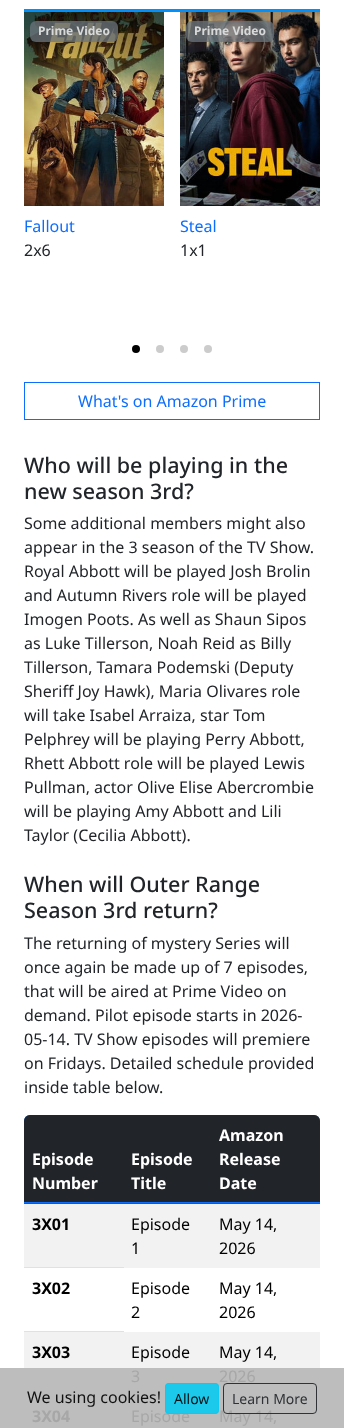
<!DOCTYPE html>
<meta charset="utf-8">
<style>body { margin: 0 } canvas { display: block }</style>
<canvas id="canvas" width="344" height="1428"></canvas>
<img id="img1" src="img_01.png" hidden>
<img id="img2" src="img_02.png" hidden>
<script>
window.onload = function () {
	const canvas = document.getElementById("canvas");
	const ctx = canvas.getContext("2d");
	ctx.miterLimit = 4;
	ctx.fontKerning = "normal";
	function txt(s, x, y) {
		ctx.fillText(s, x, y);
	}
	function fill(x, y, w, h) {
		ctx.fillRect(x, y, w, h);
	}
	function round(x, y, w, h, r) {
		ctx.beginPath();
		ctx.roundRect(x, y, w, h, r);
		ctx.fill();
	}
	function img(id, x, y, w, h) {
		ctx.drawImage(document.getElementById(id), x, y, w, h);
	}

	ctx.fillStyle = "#FFFFFF";
	fill(0, 0, 344, 1428);
	ctx.fillStyle = "#BDBDBD";
	fill(0, 1368, 344, 60);
	ctx.fillStyle = "#0091FF";
	fill(24, 9, 296, 3);
	img("img1", 24, 12, 140, 194);
	ctx.fillStyle = "rgba(108, 117, 125, 0.75)";
	round(30, 21, 88, 21, 6);
	img("img2", 180, 12, 140, 194);
	round(186, 21, 88, 21, 6);
	ctx.fillStyle = "#000000";
	ctx.beginPath();
	ctx.arc(136, 349, 4, 0, Math.PI * 2);
	ctx.fill();
	ctx.fillStyle = "#CCCCCC";
	ctx.beginPath();
	ctx.arc(160, 349, 4, 0, Math.PI * 2);
	ctx.fill();
	ctx.beginPath();
	ctx.arc(184, 349, 4, 0, Math.PI * 2);
	ctx.fill();
	ctx.beginPath();
	ctx.arc(208, 349, 4, 0, Math.PI * 2);
	ctx.fill();
	ctx.strokeStyle = "#0D6EFD";
	ctx.strokeRect(24.5, 382.5, 295, 37);
	ctx.fillStyle = "#0D6EFD";
	ctx.beginPath();
	ctx.roundRect(24, 1115, 296, 88, [6, 6, 0, 0]);
	ctx.fill();
	ctx.fillStyle = "#212529";
	ctx.beginPath();
	ctx.roundRect(24, 1115, 99, 87, [6, 0, 0, 0]);
	ctx.fill();
	fill(123, 1115, 88, 87);
	ctx.beginPath();
	ctx.roundRect(211, 1115, 109, 87, [0, 6, 0, 0]);
	ctx.fill();
	ctx.fillStyle = "#4D5154";
	fill(24, 1203, 296, 1);
	ctx.fillStyle = "#F2F2F2";
	fill(24, 1204, 99, 63);
	fill(123, 1204, 197, 64);
	ctx.fillStyle = "#DEE2E6";
	fill(24, 1267, 100, 1);
	fill(24, 1331, 100, 1);
	ctx.fillStyle = "#F2F2F2";
	fill(24, 1332, 296, 36);
	ctx.font = "bold 12px Noto Sans";
	ctx.fillStyle = "#D8D9D9";
	txt("Prime Video", 38, 35);
	ctx.font = "16px Noto Sans";
	ctx.fillStyle = "#0D6EFD";
	txt("Fallout", 24, 232);
	ctx.fillStyle = "#212529";
	txt("2x6", 24, 256);
	ctx.font = "bold 12px Noto Sans";
	ctx.fillStyle = "#D8D9D9";
	txt("Prime Video", 194, 35);
	ctx.font = "16px Noto Sans";
	ctx.fillStyle = "#0D6EFD";
	txt("Steal", 180, 232);
	ctx.fillStyle = "#212529";
	txt("1x1", 180, 256);
	ctx.fillStyle = "#0D6EFD";
	txt("What's on Amazon Prime", 78, 407);
	ctx.font = "500 21.5px Noto Sans";
	ctx.fillStyle = "#212529";
	txt("Who will be playing in the", 24, 473);
	txt("new season 3rd?", 24, 499);
	ctx.font = "16px Noto Sans";
	txt("Some additional members might also", 24, 529);
	txt("appear in the 3 season of the TV Show.", 24, 553);
	txt("Royal Abbott will be played Josh Brolin", 24, 577);
	txt("and Autumn Rivers role will be played", 24, 601);
	txt("Imogen Poots. As well as Shaun Sipos", 24, 625);
	txt("as Luke Tillerson, Noah Reid as Billy", 24, 649);
	txt("Tillerson, Tamara Podemski (Deputy", 24, 673);
	txt("Sheriff Joy Hawk), Maria Olivares role", 24, 697);
	txt("will take Isabel Arraiza, star Tom", 24, 721);
	txt("Pelphrey will be playing Perry Abbott,", 24, 745);
	txt("Rhett Abbott role will be played Lewis", 24, 769);
	txt("Pullman, actor Olive Elise Abercrombie", 24, 793);
	txt("will be playing Amy Abbott and Lili", 24, 817);
	txt("Taylor (Cecilia Abbott).", 24, 841);
	ctx.font = "500 21.5px Noto Sans";
	txt("When will Outer Range", 24, 892);
	txt("Season 3rd return?", 24, 918);
	ctx.font = "16px Noto Sans";
	txt("The returning of mystery Series will", 24, 949);
	txt("once again be made up of 7 episodes,", 24, 973);
	txt("that will be aired at Prime Video on", 24, 997);
	txt("demand. Pilot episode starts in 2026-", 24, 1021);
	txt("05-14. TV Show episodes will premiere", 24, 1045);
	txt("on Fridays. Detailed schedule provided", 24, 1069);
	txt("inside table below.", 24, 1093);
	ctx.font = "bold 16px Noto Sans";
	ctx.fillStyle = "#FFFFFF";
	txt("Episode", 32, 1165);
	txt("Number", 32, 1189);
	txt("Episode", 131, 1165);
	txt("Title", 131, 1189);
	txt("Amazon", 219, 1141);
	txt("Release", 219, 1165);
	txt("Date", 219, 1189);
	ctx.fillStyle = "#000000";
	txt("3X01", 32, 1230);
	ctx.font = "16px Noto Sans";
	txt("Episode", 131, 1230);
	txt("1", 131, 1254);
	txt("May 14,", 219, 1230);
	txt("2026", 219, 1254);
	ctx.font = "bold 16px Noto Sans";
	txt("3X02", 32, 1294);
	ctx.font = "16px Noto Sans";
	txt("Episode", 131, 1294);
	txt("2", 131, 1318);
	txt("May 14,", 219, 1294);
	txt("2026", 219, 1318);
	ctx.font = "bold 16px Noto Sans";
	txt("3X03", 32, 1358);
	ctx.font = "16px Noto Sans";
	txt("Episode", 131, 1358);
	ctx.fillStyle = "#A7A7A7";
	txt("3", 131, 1382);
	ctx.fillStyle = "#000000";
	txt("May 14,", 219, 1358);
	ctx.fillStyle = "#A7A7A7";
	txt("2026", 219, 1382);
	ctx.font = "bold 16px Noto Sans";
	txt("3X04", 32, 1422);
	ctx.font = "16px Noto Sans";
	txt("Episode", 131, 1422);
	txt("May 14,", 219, 1422);
	ctx.fillStyle = "#111111";
	txt("We using cookies!", 27, 1403);
	ctx.fillStyle = "rgba(13, 202, 240, 0.91)";
	round(165, 1383, 54, 31, 4);
	ctx.beginPath();
	ctx.roundRect(165.5, 1383.5, 53, 30, 3.5);
	ctx.strokeStyle = "rgba(13, 202, 240, 0.91)";
	ctx.stroke();
	ctx.font = "14px Noto Sans";
	ctx.fillStyle = "#031215";
	txt("Allow", 174, 1404);
	ctx.beginPath();
	ctx.roundRect(223.5, 1383.5, 93, 30, 3.5);
	ctx.strokeStyle = "rgba(33, 37, 41, 0.91)";
	ctx.stroke();
	ctx.fillStyle = "#2F3336";
	txt("Learn More", 232, 1404);
};
</script>
